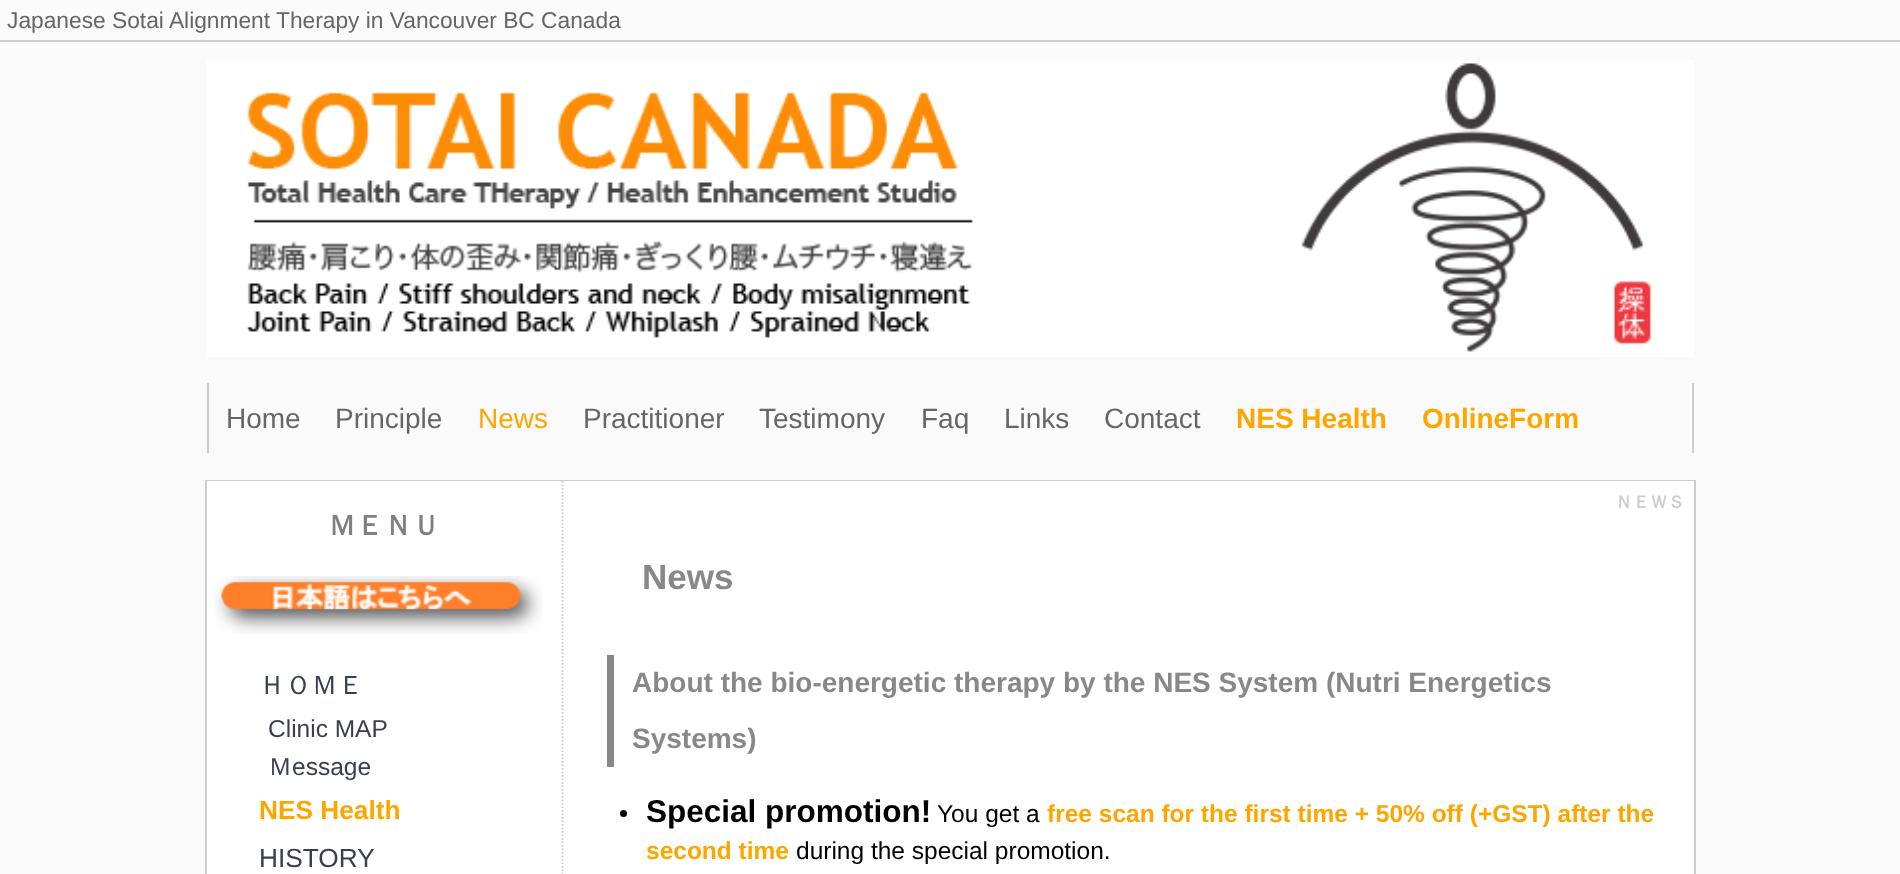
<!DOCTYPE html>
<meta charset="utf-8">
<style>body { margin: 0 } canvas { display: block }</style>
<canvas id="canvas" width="1900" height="874"></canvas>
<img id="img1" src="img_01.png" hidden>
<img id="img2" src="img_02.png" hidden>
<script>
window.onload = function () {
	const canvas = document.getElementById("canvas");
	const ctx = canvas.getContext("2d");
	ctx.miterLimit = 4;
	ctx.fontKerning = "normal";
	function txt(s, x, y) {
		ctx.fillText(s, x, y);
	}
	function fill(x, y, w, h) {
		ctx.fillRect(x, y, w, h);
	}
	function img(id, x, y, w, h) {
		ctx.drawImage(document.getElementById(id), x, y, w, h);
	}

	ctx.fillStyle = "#FAFAFA";
	fill(0, 0, 1900, 874);
	ctx.fillStyle = "#CCCCCC";
	fill(0, 40, 1900, 2);
	img("img1", 207, 60, 1487, 297);
	fill(1692, 383, 2, 70);
	fill(207, 383, 2, 70);
	ctx.strokeStyle = "#CCCCCC";
	ctx.lineWidth = 2;
	ctx.strokeRect(206, 481, 1489, 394);
	ctx.fillStyle = "#FFFFFF";
	fill(207, 481, 1487, 393);
	ctx.beginPath();
	ctx.moveTo(562.5, 481);
	ctx.lineTo(562.5, 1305.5);
	ctx.lineWidth = 1.8;
	ctx.setLineDash([1.75, 1.75]);
	ctx.stroke();
	img("img2", 215, 576, 328, 58);
	ctx.fillStyle = "#888888";
	fill(607, 655, 7, 112);
	ctx.fillStyle = "#000000";
	ctx.beginPath();
	ctx.arc(623.5, 813.5, 3.5, 0, Math.PI * 2);
	ctx.fill();
	ctx.font = "22.75px Liberation Sans";
	ctx.fillStyle = "#666666";
	txt("Japanese Sotai Alignment Therapy in Vancouver BC Canada", 7, 28);
	ctx.font = "28px Liberation Sans";
	txt("Home", 226, 428);
	txt("Principle", 335, 428);
	ctx.fillStyle = "#FFA500";
	txt("News", 478, 428);
	ctx.fillStyle = "#666666";
	txt("Practitioner", 583, 428);
	txt("Testimony", 759, 428);
	txt("Faq", 921, 428);
	txt("Links", 1004, 428);
	txt("Contact", 1104, 428);
	ctx.font = "bold 28px Liberation Sans";
	ctx.fillStyle = "#FFA500";
	txt("NES Health", 1236, 428);
	txt("OnlineForm", 1422, 428);
	ctx.font = "bold 28px WenQuanYi Zen Hei";
	ctx.fillStyle = "#808080";
	txt("ＭＥＮＵ", 328, 535);
	ctx.font = "500 26.25px WenQuanYi Zen Hei";
	ctx.fillStyle = "#393E52";
	txt("ＨＯＭＥ", 259, 694);
	ctx.font = "24.5px Liberation Sans";
	txt("Clinic MAP", 268, 737);
	ctx.font = "500 24.5px WenQuanYi Zen Hei";
	txt("Ｍ", 268, 775);
	ctx.font = "24.5px Liberation Sans";
	txt("essage", 292, 775);
	ctx.font = "bold 26.25px Liberation Sans";
	ctx.fillStyle = "#FFA500";
	txt("NES Health", 259, 819);
	ctx.font = "26.25px Liberation Sans";
	ctx.fillStyle = "#393E52";
	txt("HISTORY", 259, 867);
	ctx.font = "bold 17.5px WenQuanYi Zen Hei";
	ctx.fillStyle = "#CCCCCC";
	txt("ＮＥＷＳ", 1615, 508);
	ctx.font = "bold 35px Liberation Sans";
	ctx.fillStyle = "#888888";
	txt("News", 642, 589);
	ctx.font = "bold 28px Liberation Sans";
	txt("About the bio-energetic therapy by the NES System (Nutri Energetics", 632, 692);
	txt("Systems)", 632, 748);
	ctx.font = "bold 31.5px Liberation Sans";
	ctx.fillStyle = "#000000";
	txt("Special promotion!", 646, 822);
	ctx.font = "24.5px Liberation Sans";
	txt("You get a", 937, 822);
	ctx.font = "bold 24.5px Liberation Sans";
	ctx.fillStyle = "#FFA500";
	txt("free scan for the first time + 50% off (+GST) after the", 1047, 822);
	txt("second time", 646, 859);
	ctx.font = "24.5px Liberation Sans";
	ctx.fillStyle = "#000000";
	txt("during the special promotion.", 796, 859);
};
</script>
